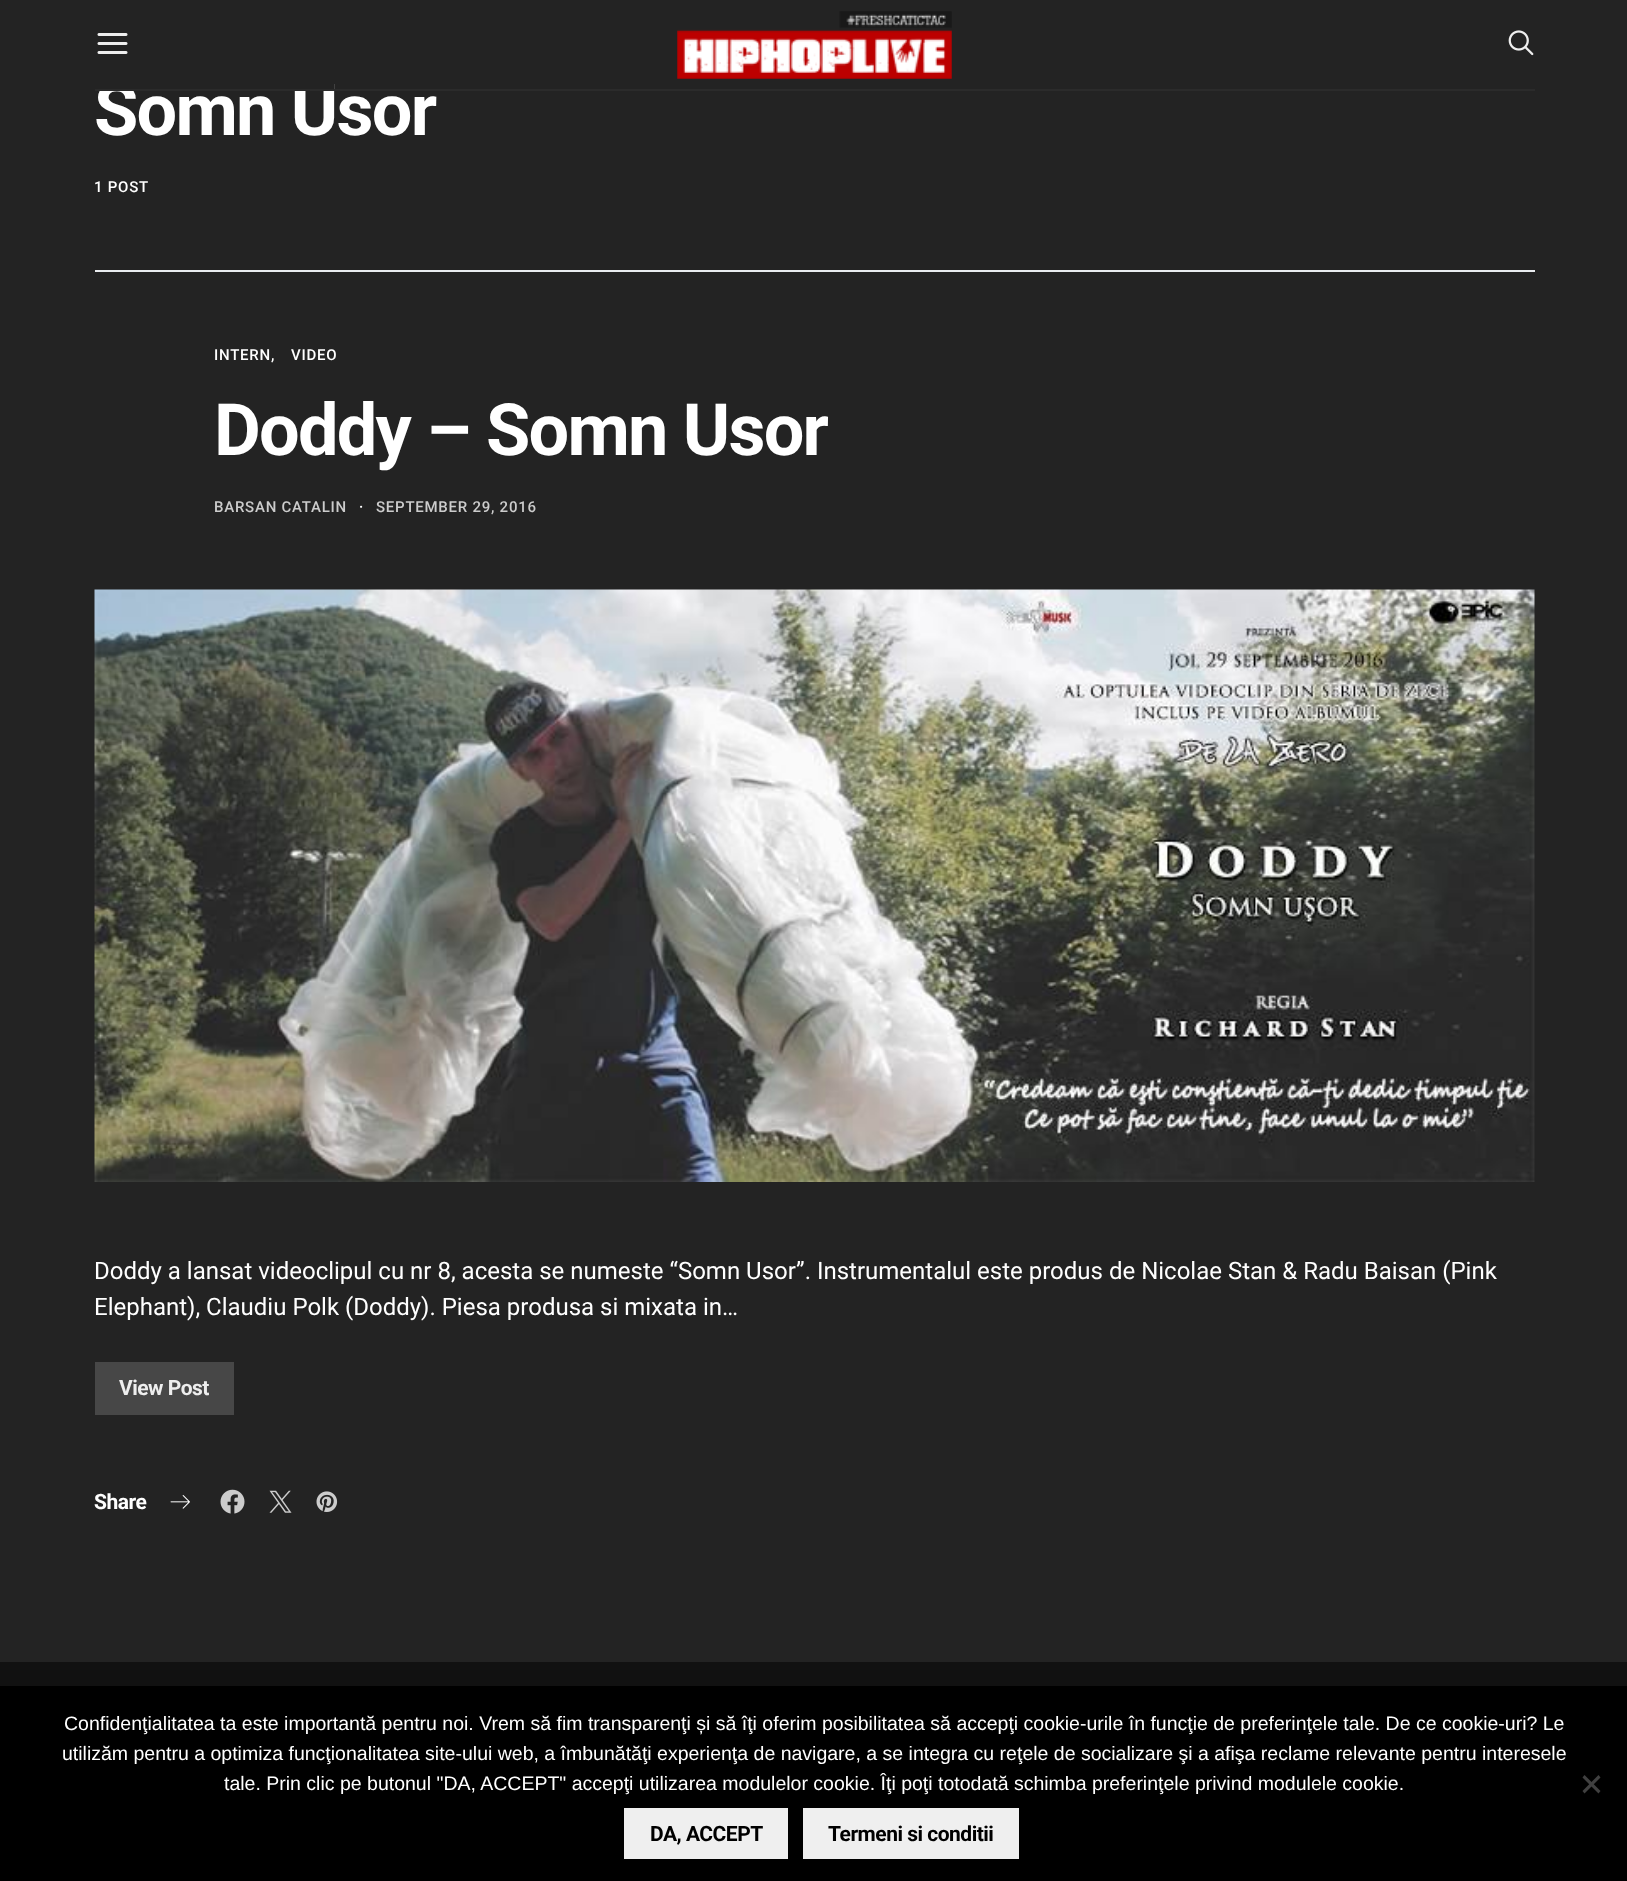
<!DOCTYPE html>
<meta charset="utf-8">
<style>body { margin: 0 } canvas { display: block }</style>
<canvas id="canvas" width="1627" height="1881"></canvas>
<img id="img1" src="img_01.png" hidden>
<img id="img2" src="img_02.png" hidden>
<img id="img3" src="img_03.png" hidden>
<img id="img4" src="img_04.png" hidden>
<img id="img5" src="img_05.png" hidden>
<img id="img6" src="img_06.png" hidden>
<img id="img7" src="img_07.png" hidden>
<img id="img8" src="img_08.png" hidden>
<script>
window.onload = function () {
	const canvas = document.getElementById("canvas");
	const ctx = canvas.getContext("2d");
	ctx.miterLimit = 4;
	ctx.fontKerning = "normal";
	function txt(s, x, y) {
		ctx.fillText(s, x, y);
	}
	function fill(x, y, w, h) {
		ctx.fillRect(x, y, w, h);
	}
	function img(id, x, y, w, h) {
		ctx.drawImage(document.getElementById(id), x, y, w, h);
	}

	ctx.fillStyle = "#232323";
	fill(0, 0, 1627, 1881);
	img("img1", 97, 33, 31, 21);
	img("img2", 677, 11, 275, 68);
	img("img3", 1508, 30, 26, 26);
	ctx.fillStyle = "#E9ECEF";
	fill(95, 270, 1440, 2);
	img("img4", 94, 589, 1441, 593);
	ctx.fillStyle = "#474747";
	fill(95, 1362, 139, 53);
	img("img5", 170, 1495, 20, 14);
	img("img6", 220, 1489, 25, 25);
	img("img7", 269, 1490, 23, 23);
	img("img8", 316, 1491, 22, 21);
	ctx.fillStyle = "#111111";
	fill(0, 1662, 1627, 24);
	ctx.fillStyle = "#000000";
	fill(0, 1686, 1627, 195);
	ctx.fillStyle = "#404040";
	ctx.beginPath();
	ctx.moveTo(1598.5, 1775);
	ctx.lineTo(1600.5, 1777.5);
	ctx.lineTo(1584.5, 1793.5);
	ctx.lineTo(1582.5, 1791);
	ctx.closePath();
	ctx.fill();
	ctx.beginPath();
	ctx.moveTo(1582.5, 1777.5);
	ctx.lineTo(1584.5, 1775);
	ctx.lineTo(1600.5, 1791);
	ctx.lineTo(1598.5, 1793.5);
	ctx.closePath();
	ctx.fill();
	ctx.fillStyle = "#EFEFEF";
	fill(624, 1808, 164, 51);
	fill(803, 1808, 216, 51);
	ctx.letterSpacing = "-1.75px";
	ctx.font = "bold 72px Roboto";
	ctx.fillStyle = "#FFFFFF";
	txt("Somn Usor", 94, 135);
	ctx.fillStyle = "#232323";
	fill(100, 83, 234, 7);
	ctx.fillStyle = "#2B2B2B";
	fill(95, 89, 1440, 2);
	ctx.letterSpacing = "0.75px";
	ctx.font = "500 15px Roboto";
	ctx.fillStyle = "#FFFFFF";
	txt("1 POST", 94, 192);
	txt("INTERN,", 214, 360);
	txt("VIDEO", 291, 360);
	ctx.letterSpacing = "-1.75px";
	ctx.font = "bold 72px Roboto";
	txt("Doddy – Somn Usor", 214, 455);
	ctx.letterSpacing = "0.75px";
	ctx.font = "500 15px Roboto";
	ctx.fillStyle = "#CCCCCC";
	txt("BARSAN CATALIN", 214, 512);
	ctx.fillStyle = "#FFFFFF";
	txt("·", 359, 512);
	ctx.fillStyle = "#CCCCCC";
	txt("SEPTEMBER 29, 2016", 376, 512);
	ctx.letterSpacing = "0px";
	ctx.font = "24px Roboto";
	ctx.fillStyle = "#FFFFFF";
	txt("Doddy a lansat videoclipul cu nr 8, acesta se numeste “Somn Usor”. Instrumentalul este produs de Nicolae Stan & Radu Baisan (Pink", 94, 1279);
	txt("Elephant), Claudiu Polk (Doddy). Piesa produsa si mixata in…", 94, 1315);
	ctx.letterSpacing = "-0.5px";
	ctx.font = "bold 21px Roboto";
	ctx.fillStyle = "#EEEEEE";
	txt("View Post", 119, 1395);
	ctx.fillStyle = "#FFFFFF";
	txt("Share", 94, 1509);
	ctx.letterSpacing = "0px";
	ctx.font = "19.5px Liberation Sans";
	txt("Confidenţialitatea ta este importantă pentru noi. Vrem să fim transparenţi și să îţi oferim posibilitatea să accepţi cookie-urile în funcţie de preferinţele tale. De ce cookie-uri? Le", 64, 1730);
	txt("utilizăm pentru a optimiza funcţionalitatea site-ului web, a îmbunătăţi experienţa de navigare, a se integra cu reţele de socializare şi a afişa reclame relevante pentru interesele", 62, 1760);
	txt("tale. Prin clic pe butonul \"DA, ACCEPT\" accepţi utilizarea modulelor cookie. Îţi poţi totodată schimba preferinţele privind modulele cookie.", 224, 1790);
	ctx.letterSpacing = "-0.5px";
	ctx.font = "bold 21px Roboto";
	ctx.fillStyle = "#000000";
	txt("DA, ACCEPT", 650, 1841);
	txt("Termeni si conditii", 828, 1841);
};
</script>
